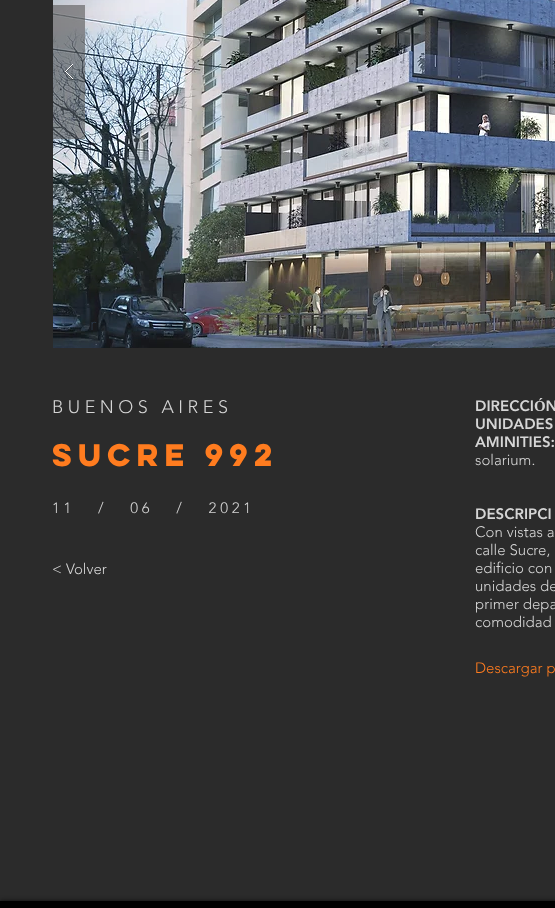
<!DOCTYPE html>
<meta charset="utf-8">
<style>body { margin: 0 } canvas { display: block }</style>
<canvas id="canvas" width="555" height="908"></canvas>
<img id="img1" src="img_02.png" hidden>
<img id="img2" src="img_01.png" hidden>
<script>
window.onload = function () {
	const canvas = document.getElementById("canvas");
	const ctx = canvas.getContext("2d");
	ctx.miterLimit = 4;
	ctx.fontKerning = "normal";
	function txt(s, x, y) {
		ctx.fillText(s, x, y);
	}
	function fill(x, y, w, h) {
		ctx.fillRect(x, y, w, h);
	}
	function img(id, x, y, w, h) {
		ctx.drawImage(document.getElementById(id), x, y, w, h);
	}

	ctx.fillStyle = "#2B2B2B";
	fill(0, 0, 555, 908);
	img("img1", 53, 0, 502, 348);
	ctx.fillStyle = "rgba(85, 85, 85, 0.6)";
	fill(53, 5, 32, 134);
	img("img2", 65, 64, 8, 16);
	ctx.fillStyle = "rgba(0, 0, 0, 0.7)";
	ctx.filter = "blur(2.5px)";
	ctx.beginPath();
	ctx.rect(0, 901, 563, 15);
	ctx.fill();
	ctx.filter = "none";
	ctx.fillStyle = "#000000";
	fill(0, 901, 555, 7);
	ctx.font = "300 17px 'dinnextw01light'";
	ctx.fillStyle = "#2D3A49";
	txt("r", 90, 330);
	ctx.letterSpacing = "4.5px";
	ctx.font = "300 18px 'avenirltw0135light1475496'";
	ctx.fillStyle = "#D5D5D5";
	txt("BUENOS AIRES", 52, 413);
	ctx.letterSpacing = "0px";
	ctx.font = "900 15px 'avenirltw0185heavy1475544'";
	txt("DIRECCIÓN", 475, 411);
	txt("UNIDADES", 475, 429);
	txt("AMINITIES:", 475, 447);
	ctx.font = "300 15px 'avenirltw0135light1475496'";
	txt("solarium.", 475, 465);
	ctx.font = "900 15px 'avenirltw0185heavy1475544'";
	txt("DESCRIPCI", 475, 519);
	ctx.font = "300 15px 'avenirltw0135light1475496'";
	txt("Con vistas a", 475, 537);
	txt("calle Sucre,", 475, 555);
	txt("edificio con", 475, 573);
	txt("unidades de", 475, 591);
	txt("primer depa", 475, 609);
	txt("comodidad", 475, 627);
	ctx.font = "bold 28px 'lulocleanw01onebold'";
	ctx.fillStyle = "#FF7C1F";
	txt("SUCRE 992", 52, 466);
	ctx.letterSpacing = "3.75px";
	ctx.font = "300 15px 'avenirltw0135light1475496'";
	ctx.fillStyle = "#D5D5D5";
	txt("11   /   06   /   2021", 52, 513);
	ctx.letterSpacing = "0px";
	txt("< Volver", 52, 574);
	ctx.fillStyle = "#FF7C1F";
	txt("Descargar p", 475, 673);
};
</script>
